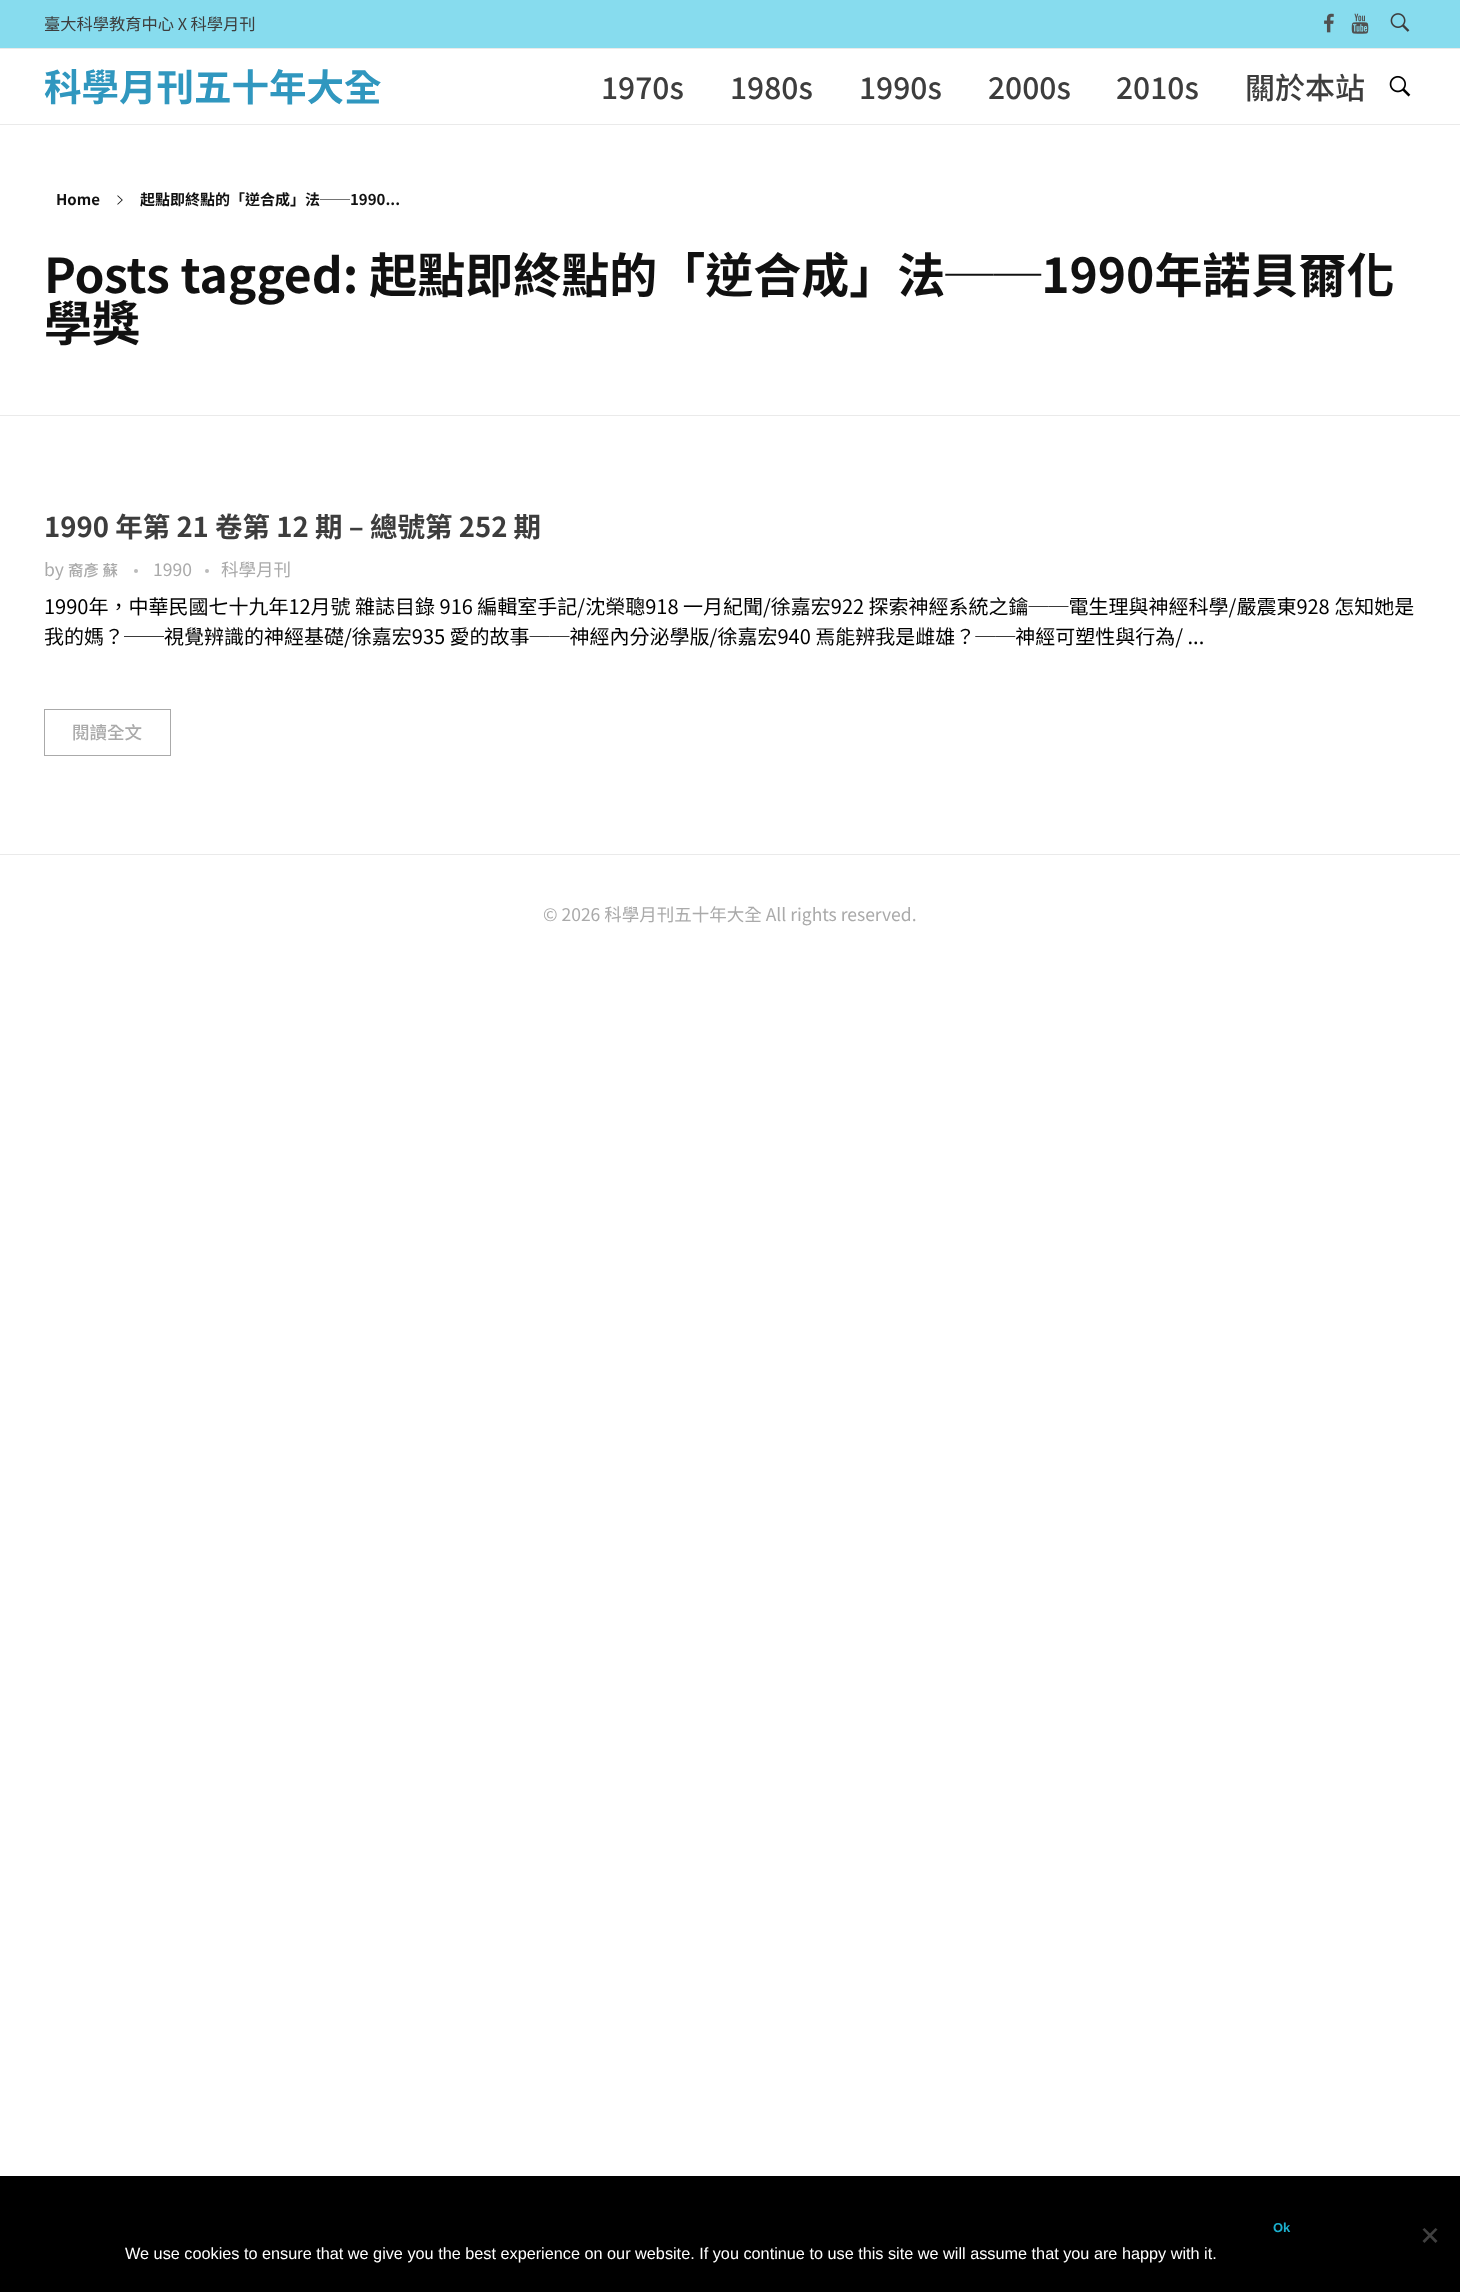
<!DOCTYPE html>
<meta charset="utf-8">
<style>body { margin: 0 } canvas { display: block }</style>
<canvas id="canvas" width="1460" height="2292"></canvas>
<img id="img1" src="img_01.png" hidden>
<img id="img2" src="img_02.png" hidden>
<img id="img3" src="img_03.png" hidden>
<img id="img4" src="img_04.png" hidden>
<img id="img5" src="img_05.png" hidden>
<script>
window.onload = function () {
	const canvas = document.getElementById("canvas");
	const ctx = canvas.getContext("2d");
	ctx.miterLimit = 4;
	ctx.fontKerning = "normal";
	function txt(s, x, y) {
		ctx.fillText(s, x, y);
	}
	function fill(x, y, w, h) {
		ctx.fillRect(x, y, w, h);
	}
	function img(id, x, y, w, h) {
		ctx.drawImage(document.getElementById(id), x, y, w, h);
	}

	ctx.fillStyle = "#FFFFFF";
	fill(0, 0, 1460, 2292);
	ctx.fillStyle = "#87DCEE";
	fill(0, 0, 1460, 48);
	ctx.fillStyle = "#EAEAEA";
	fill(0, 48, 1460, 1);
	img("img1", 1324, 13, 10, 20);
	img("img2", 1351, 13, 18, 21);
	img("img3", 1390, 13, 20, 19);
	fill(0, 124, 1460, 1);
	img("img4", 1389, 75, 22, 22);
	fill(0, 415, 1460, 1);
	img("img5", 117, 195, 6, 10);
	ctx.fillStyle = "#BBBBBB";
	ctx.beginPath();
	ctx.arc(136, 571, 2, 0, Math.PI * 2);
	ctx.fill();
	ctx.beginPath();
	ctx.arc(207, 571, 2, 0, Math.PI * 2);
	ctx.fill();
	ctx.strokeStyle = "#AAAAAA";
	ctx.strokeRect(44.5, 709.5, 126, 46);
	ctx.fillStyle = "#EAEAEA";
	fill(0, 854, 1460, 1);
	ctx.fillStyle = "#000000";
	fill(0, 2176, 1460, 116);
	ctx.fillStyle = "#404040";
	ctx.beginPath();
	ctx.moveTo(1435.5, 2228);
	ctx.lineTo(1437.5, 2229.5);
	ctx.lineTo(1424.5, 2243);
	ctx.lineTo(1422.5, 2241);
	ctx.closePath();
	ctx.fill();
	ctx.beginPath();
	ctx.moveTo(1422.5, 2229.5);
	ctx.lineTo(1424.5, 2228);
	ctx.lineTo(1437.5, 2241);
	ctx.lineTo(1435.5, 2243);
	ctx.closePath();
	ctx.fill();
	ctx.font = "16.25px Noto Sans TC";
	ctx.fillStyle = "#3D3D3D";
	txt("臺大科學教育中心 X 科學月刊", 44, 30);
	ctx.font = "bold 37.5px Noto Sans TC";
	ctx.fillStyle = "#3097BF";
	txt("科學月刊五十年大全", 44, 101);
	ctx.font = "500 30px Noto Sans TC";
	ctx.fillStyle = "#3D3D3D";
	txt("1970s", 601, 99);
	txt("1980s", 730, 99);
	txt("1990s", 859, 99);
	txt("2000s", 988, 99);
	txt("2010s", 1116, 99);
	txt("關於本站", 1245, 99);
	ctx.font = "bold 15px Noto Sans TC";
	ctx.fillStyle = "#111111";
	txt("Home", 56, 205);
	txt("起點即終點的「逆合成」法──1990...", 140, 205);
	ctx.font = "bold 48px Noto Sans TC";
	txt("Posts tagged: 起點即終點的「逆合成」法──1990年諾貝爾化", 44, 293);
	txt("學獎", 44, 341);
	ctx.font = "bold 27.5px Noto Sans TC";
	ctx.fillStyle = "#3D3D3D";
	txt("1990 年第 21 卷第 12 期 – 總號第 252 期", 44, 537);
	ctx.font = "17.5px Noto Sans TC";
	ctx.fillStyle = "#AAAAAA";
	txt("by", 44, 576);
	ctx.font = "500 15.5px Noto Sans TC";
	txt("裔彥 蘇", 68, 576);
	ctx.font = "17.5px Noto Sans TC";
	txt("1990", 153, 576);
	txt("科學月刊", 221, 576);
	ctx.font = "20px Noto Sans TC";
	ctx.fillStyle = "#000000";
	txt("1990年，中華民國七十九年12月號 雜誌目錄 916 編輯室手記/沈榮聰918 一月紀聞/徐嘉宏922 探索神經系統之鑰──電生理與神經科學/嚴震東928 怎知她是", 44, 614);
	txt("我的媽？──視覺辨識的神經基礎/徐嘉宏935 愛的故事──神經內分泌學版/徐嘉宏940 焉能辨我是雌雄？──神經可塑性與行為/ ...", 44, 644);
	ctx.font = "500 17.5px Noto Sans TC";
	ctx.fillStyle = "#AAAAAA";
	txt("閱讀全文", 72, 739);
	ctx.font = "17.5px Noto Sans TC";
	txt("© 2026 科學月刊五十年大全 All rights reserved.", 543, 921);
	ctx.font = "bold 13px Liberation Sans";
	ctx.fillStyle = "#1BB0CE";
	txt("Ok", 1273, 2232);
	ctx.font = "16.25px Liberation Sans";
	ctx.fillStyle = "#FFFFFF";
	txt("We use cookies to ensure that we give you the best experience on our website. If you continue to use this site we will assume that you are happy with it.", 125, 2259);
};
</script>
